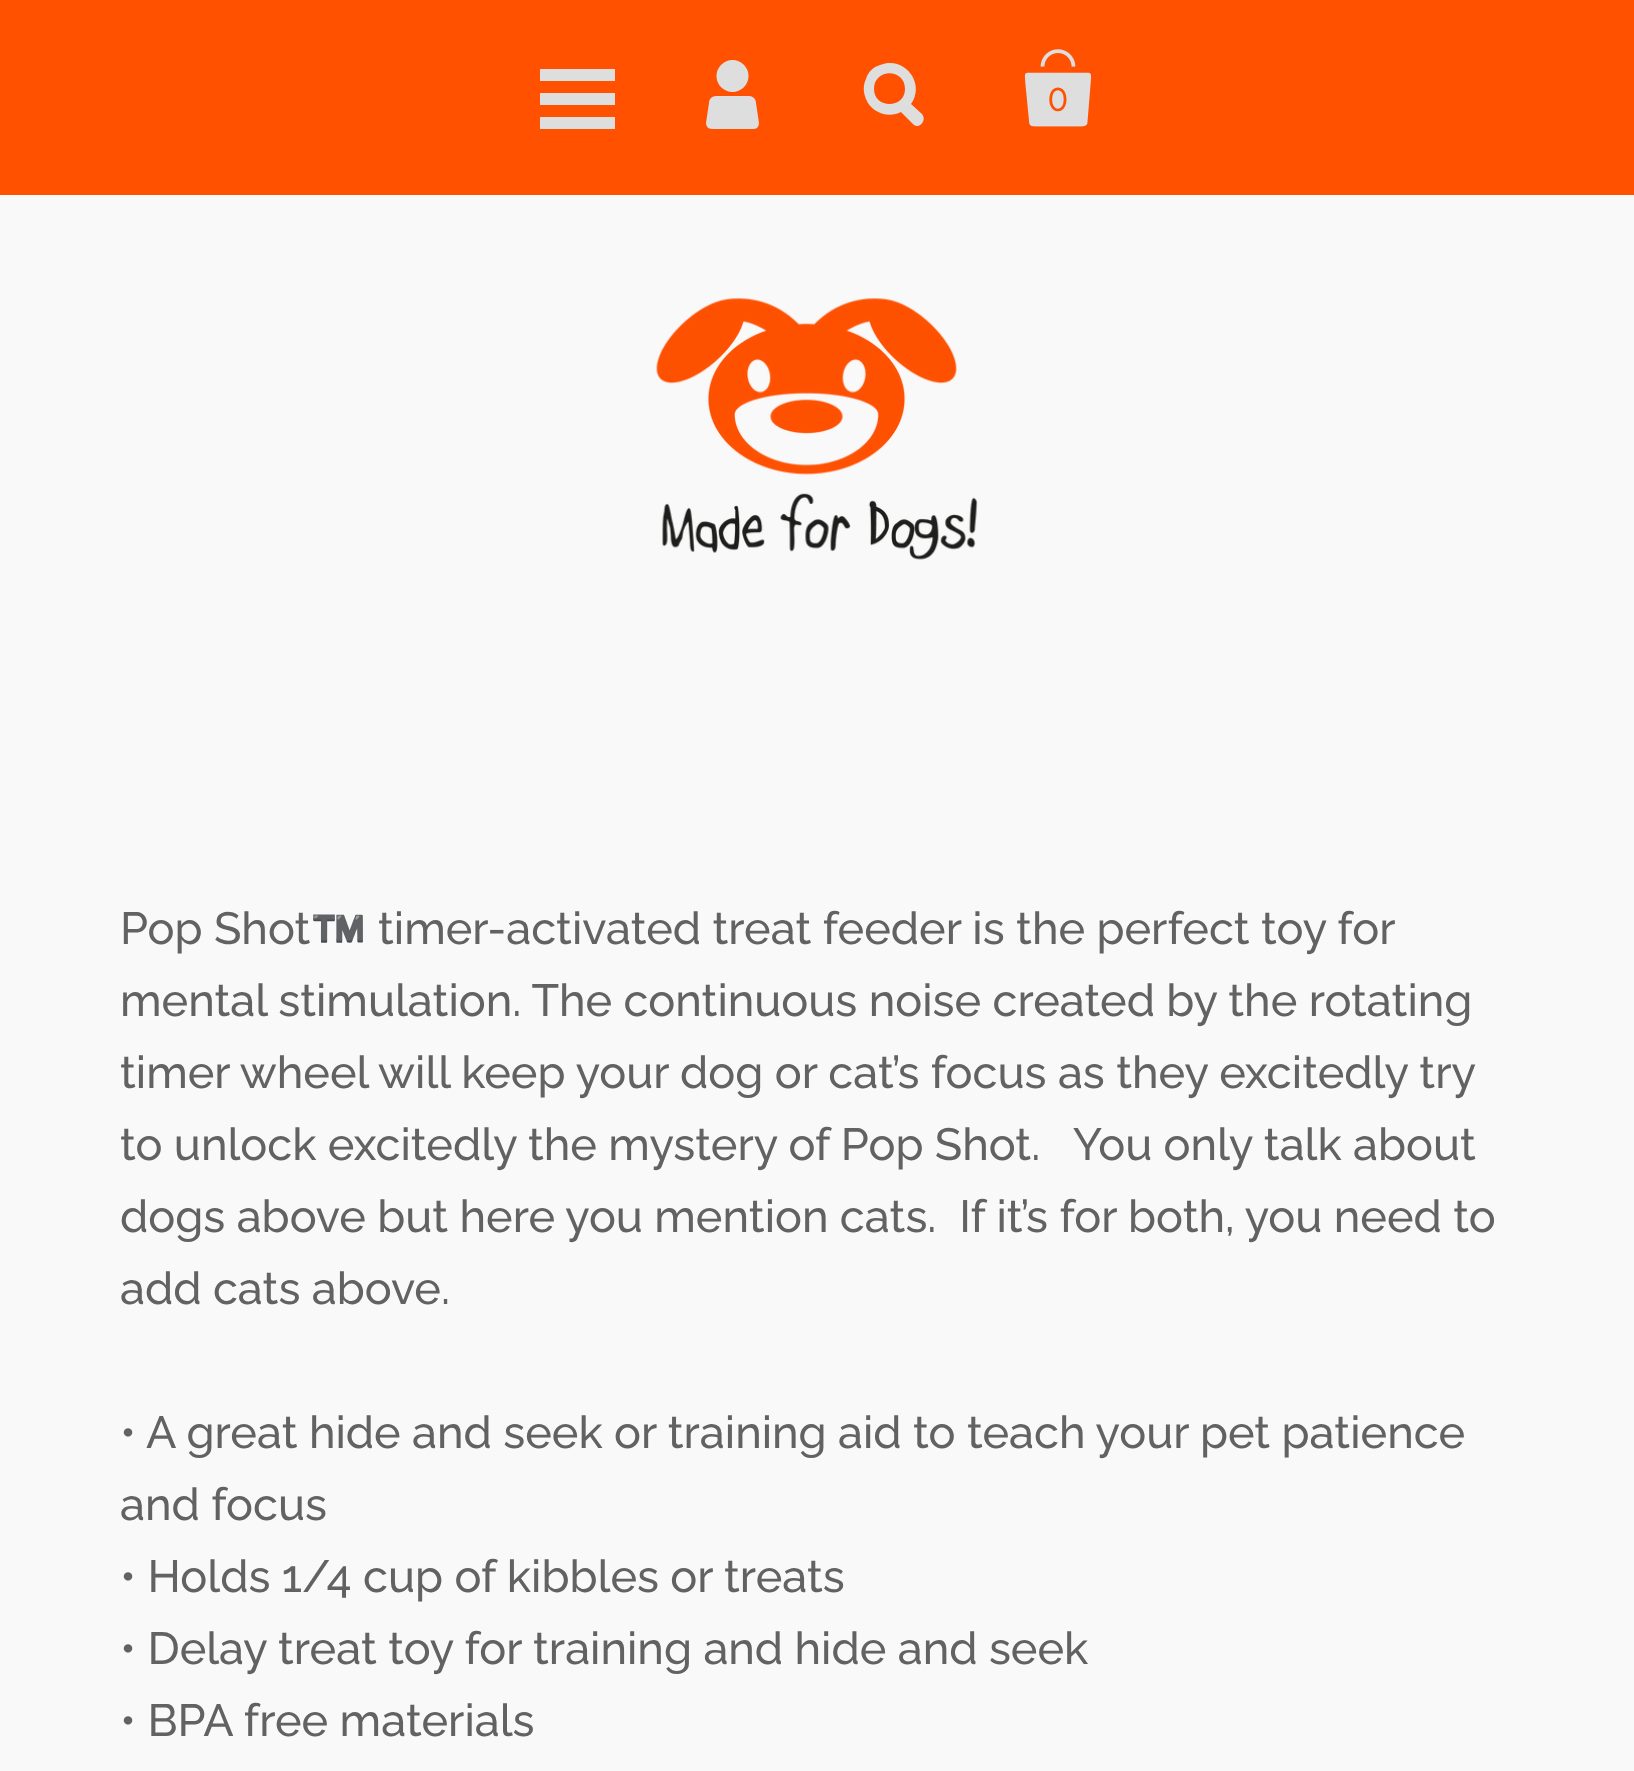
<!DOCTYPE html>
<meta charset="utf-8">
<style>body { margin: 0 } canvas { display: block }</style>
<canvas id="canvas" width="1634" height="1771"></canvas>
<img id="img1" src="img_01.png" hidden>
<img id="img2" src="img_02.png" hidden>
<script>
window.onload = function () {
	const canvas = document.getElementById("canvas");
	const ctx = canvas.getContext("2d");
	ctx.miterLimit = 4;
	ctx.fontKerning = "normal";
	function txt(s, x, y) {
		ctx.fillText(s, x, y);
	}
	function fill(x, y, w, h) {
		ctx.fillRect(x, y, w, h);
	}
	function img(id, x, y, w, h) {
		ctx.drawImage(document.getElementById(id), x, y, w, h);
	}

	ctx.fillStyle = "#F9F9F9";
	fill(0, 0, 1634, 1771);
	ctx.fillStyle = "#FF5100";
	fill(0, 0, 1634, 195);
	ctx.fillStyle = "#DEDEDE";
	fill(540, 69, 75, 12);
	fill(540, 93, 75, 12);
	fill(540, 117, 75, 12);
	ctx.beginPath();
	ctx.moveTo(759, 123);
	ctx.lineTo(756, 103);
	ctx.bezierCurveTo(756, 99, 753, 96, 749, 96);
	ctx.lineTo(716, 96);
	ctx.bezierCurveTo(712, 96, 709, 99, 709, 103);
	ctx.lineTo(706, 123);
	ctx.bezierCurveTo(706, 126, 708, 129, 712, 129);
	ctx.lineTo(754, 129);
	ctx.bezierCurveTo(757, 129, 759, 126, 759, 123);
	ctx.closePath();
	ctx.fill();
	ctx.beginPath();
	ctx.arc(732.5, 76, 16, 0, Math.PI * 2);
	ctx.fill();
	ctx.beginPath();
	ctx.moveTo(922, 114);
	ctx.lineTo(911, 104);
	ctx.bezierCurveTo(926, 83, 904, 55, 880, 65);
	ctx.bezierCurveTo(873, 67, 868, 72, 866, 79);
	ctx.bezierCurveTo(863, 85, 863, 92, 866, 99);
	ctx.bezierCurveTo(871, 112, 888, 119, 901, 112);
	ctx.lineTo(914, 125);
	ctx.bezierCurveTo(920, 129, 927, 120, 922, 114);
	ctx.closePath();
	ctx.moveTo(874, 89);
	ctx.bezierCurveTo(874, 68, 905, 68, 905, 89);
	ctx.bezierCurveTo(905, 109, 874, 109, 874, 89);
	ctx.closePath();
	ctx.fill();
	img("img1", 1024, 49, 68, 78);
	img("img2", 656, 298, 322, 262);
	ctx.font = "33px Jost";
	ctx.fillStyle = "#FF5100";
	txt("0", 1048, 111);
	ctx.font = "500 45px Raleway";
	ctx.fillStyle = "#626262";
	txt("Pop Shot", 120, 944);
	ctx.font = "45px Noto Color Emoji";
	txt("™️", 310, 944);
	ctx.font = "500 45px Raleway";
	txt("timer-activated treat feeder is the perfect toy for", 378, 944);
	txt("mental stimulation. The continuous noise created by the rotating", 120, 1016);
	txt("timer wheel will keep your dog or cat’s focus as they excitedly try", 120, 1088);
	txt("to unlock excitedly the mystery of Pop Shot.   You only talk about", 120, 1160);
	txt("dogs above but here you mention cats.  If it’s for both, you need to", 120, 1232);
	txt("add cats above.", 120, 1304);
	txt("• A great hide and seek or training aid to teach your pet patience", 120, 1448);
	txt("and focus", 120, 1520);
	txt("• Holds 1/4 cup of kibbles or treats", 120, 1592);
	txt("• Delay treat toy for training and hide and seek", 120, 1664);
	txt("• BPA free materials", 120, 1736);
};
</script>
